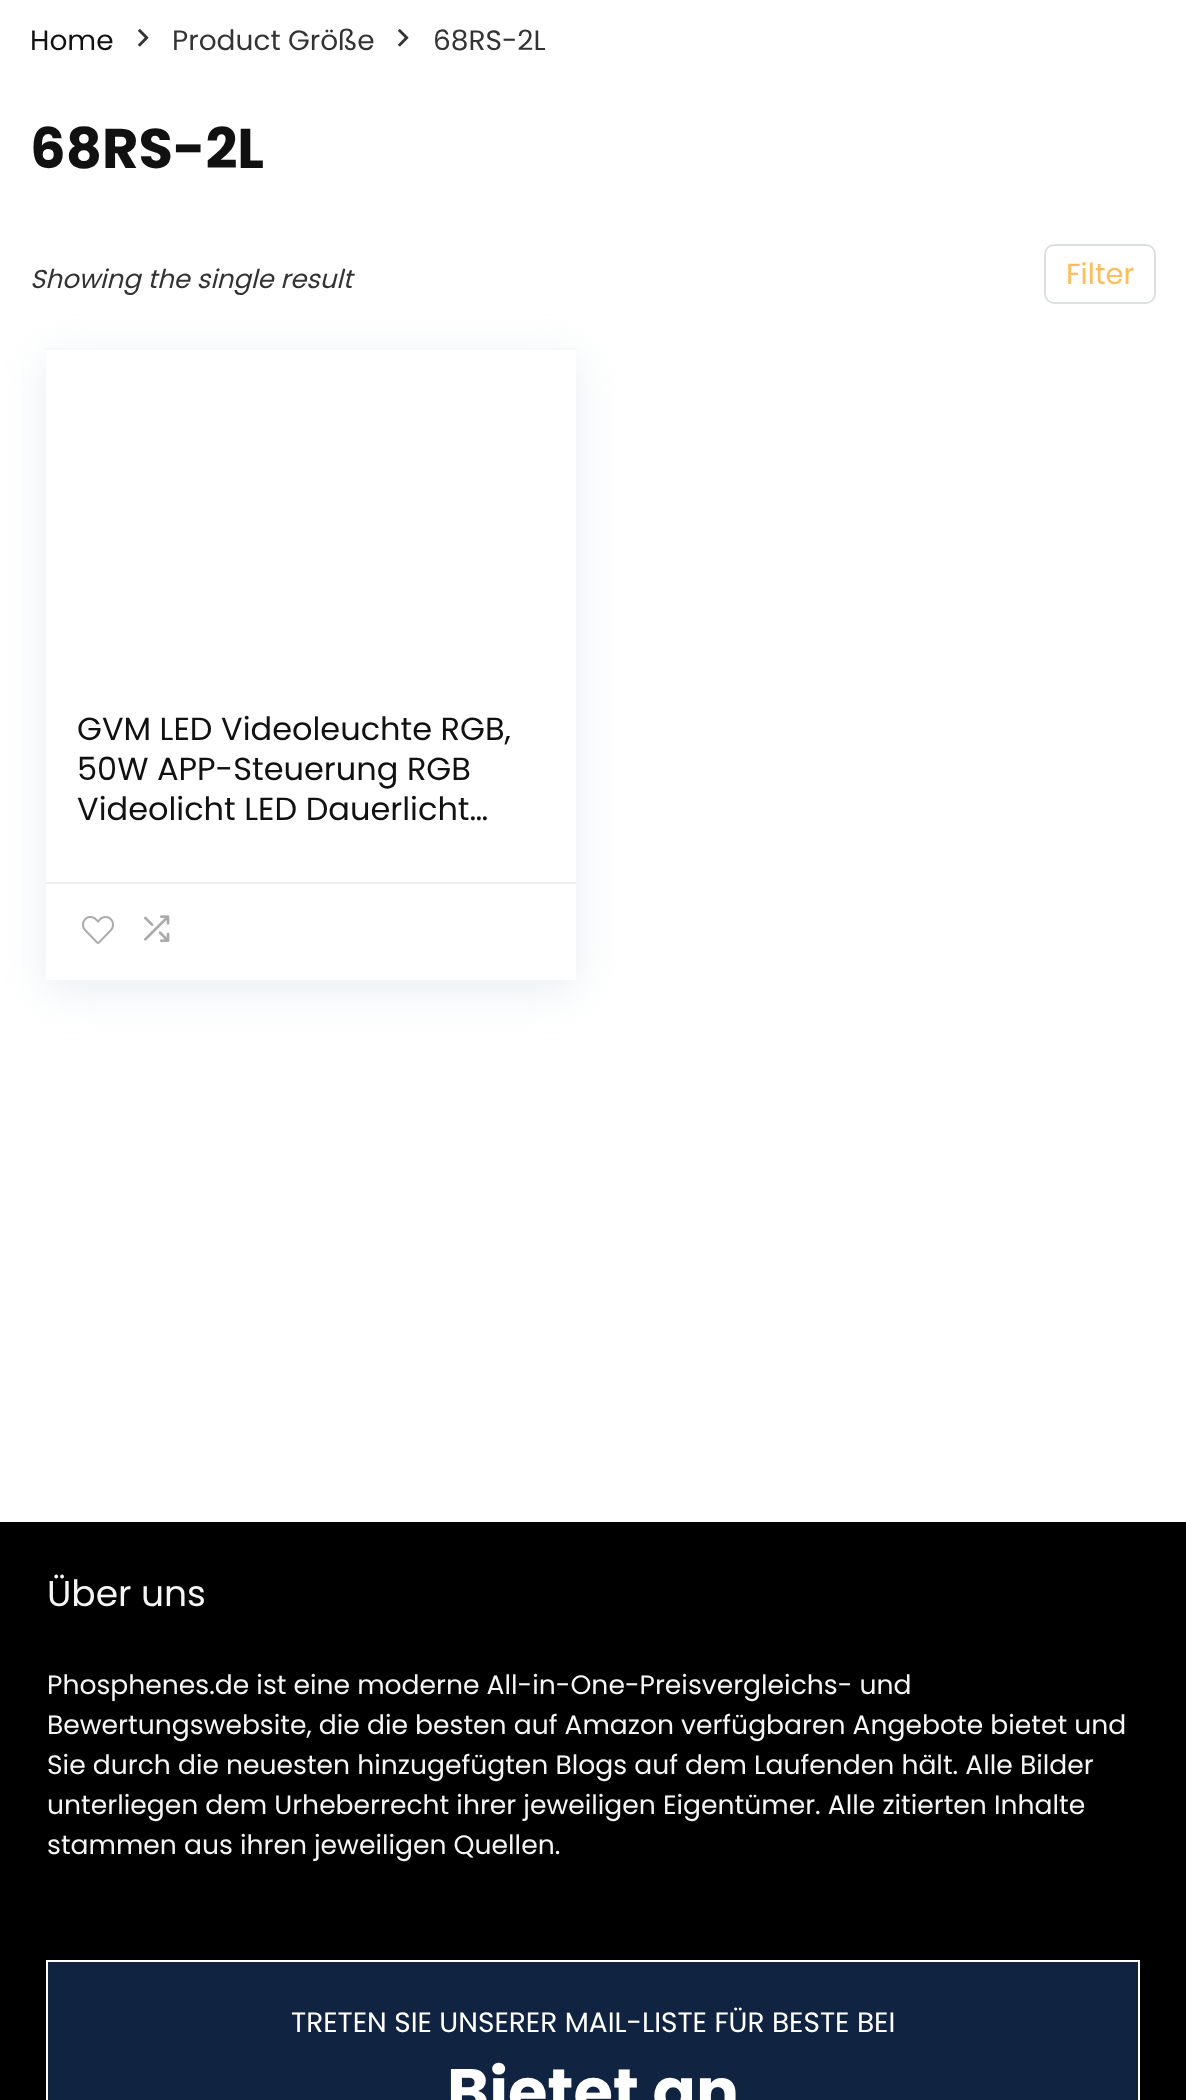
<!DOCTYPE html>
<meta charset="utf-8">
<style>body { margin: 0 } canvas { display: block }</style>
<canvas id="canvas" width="1186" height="2100"></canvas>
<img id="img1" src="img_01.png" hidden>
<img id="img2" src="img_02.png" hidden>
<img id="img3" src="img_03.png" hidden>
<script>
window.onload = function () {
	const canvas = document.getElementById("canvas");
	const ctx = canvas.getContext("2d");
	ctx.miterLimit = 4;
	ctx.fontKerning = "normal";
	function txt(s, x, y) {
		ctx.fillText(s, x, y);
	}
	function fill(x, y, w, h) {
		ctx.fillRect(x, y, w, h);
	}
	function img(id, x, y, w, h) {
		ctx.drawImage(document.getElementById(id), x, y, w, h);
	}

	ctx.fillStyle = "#FFFFFF";
	fill(0, 0, 1186, 2100);
	img("img1", 138, 29, 11, 18);
	img("img1", 398, 29, 11, 18);
	ctx.beginPath();
	ctx.roundRect(1045, 245, 110, 58, 9);
	ctx.strokeStyle = "#DCE0E0";
	ctx.lineWidth = 2;
	ctx.stroke();
	ctx.save();
	ctx.beginPath();
	ctx.moveTo(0, 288);
	ctx.lineTo(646, 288);
	ctx.lineTo(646, 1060);
	ctx.lineTo(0, 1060);
	ctx.closePath();
	ctx.moveTo(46, 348);
	ctx.lineTo(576, 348);
	ctx.lineTo(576, 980);
	ctx.lineTo(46, 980);
	ctx.closePath();
	ctx.clip("evenodd");
	ctx.fillStyle = "rgba(188, 207, 219, 0.35)";
	ctx.filter = "blur(23px)";
	ctx.beginPath();
	ctx.rect(46, 358, 530, 632);
	ctx.fill();
	ctx.filter = "none";
	ctx.restore();
	ctx.fillStyle = "#F8F8F8";
	fill(46, 348, 530, 2);
	ctx.fillStyle = "#F0F0F0";
	fill(46, 882, 530, 2);
	img("img2", 82, 916, 32, 28);
	img("img3", 144, 915, 26, 27);
	ctx.fillStyle = "#000000";
	fill(0, 1522, 1186, 578);
	ctx.fillStyle = "#102341";
	ctx.beginPath();
	ctx.rect(47, 1961, 1092, 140);
	ctx.fill();
	ctx.strokeStyle = "#FFFFFF";
	ctx.stroke();
	ctx.font = "28px Poppins";
	ctx.fillStyle = "#111111";
	txt("Home", 30, 50);
	ctx.fillStyle = "#333333";
	txt("Product Größe", 172, 50);
	txt("68RS-2L", 433, 50);
	ctx.font = "bold 56px Poppins";
	ctx.fillStyle = "#111111";
	txt("68RS-2L", 30, 168);
	ctx.font = "italic 26px Poppins";
	ctx.fillStyle = "#333333";
	txt("Showing the single result", 30, 288);
	ctx.font = "29px Poppins";
	ctx.fillStyle = "#FFBD59";
	txt("Filter", 1066, 284);
	ctx.font = "32px Poppins";
	ctx.fillStyle = "#111111";
	txt("GVM LED Videoleuchte RGB,", 77, 740);
	txt("50W APP-Steuerung RGB", 77, 780);
	txt("Videolicht LED Dauerlicht…", 77, 820);
	ctx.font = "36px Poppins";
	ctx.fillStyle = "#F5F5F5";
	txt("Über uns", 47, 1606);
	ctx.font = "26.6px Poppins";
	txt("Phosphenes.de ist eine moderne All-in-One-Preisvergleichs- und", 47, 1694);
	txt("Bewertungswebsite, die die besten auf Amazon verfügbaren Angebote bietet und", 47, 1734);
	txt("Sie durch die neuesten hinzugefügten Blogs auf dem Laufenden hält. Alle Bilder", 47, 1774);
	txt("unterliegen dem Urheberrecht ihrer jeweiligen Eigentümer. Alle zitierten Inhalte", 47, 1814);
	txt("stammen aus ihren jeweiligen Quellen.", 47, 1854);
	ctx.font = "28px Poppins";
	ctx.fillStyle = "#FFFFFF";
	txt("TRETEN SIE UNSERER MAIL-LISTE FÜR BESTE BEI", 291, 2032);
	ctx.font = "bold 64px Poppins";
	txt("Bietet an", 447, 2114);
};
</script>
